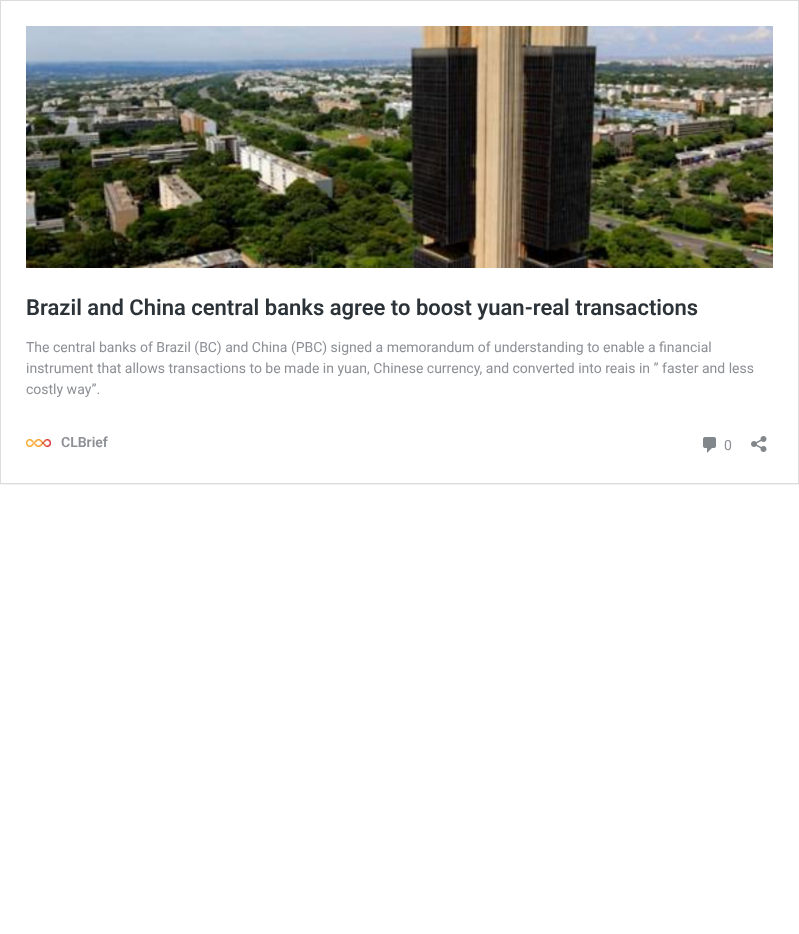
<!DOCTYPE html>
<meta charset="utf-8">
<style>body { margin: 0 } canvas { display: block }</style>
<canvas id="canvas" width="799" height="934"></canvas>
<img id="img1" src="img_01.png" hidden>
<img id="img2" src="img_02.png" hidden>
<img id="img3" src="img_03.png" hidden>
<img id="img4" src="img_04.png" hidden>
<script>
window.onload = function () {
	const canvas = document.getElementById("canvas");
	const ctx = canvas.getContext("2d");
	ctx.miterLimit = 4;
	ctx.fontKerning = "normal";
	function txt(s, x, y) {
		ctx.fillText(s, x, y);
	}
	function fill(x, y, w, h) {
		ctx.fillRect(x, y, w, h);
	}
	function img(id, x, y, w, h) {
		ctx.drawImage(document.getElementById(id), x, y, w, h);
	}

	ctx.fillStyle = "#FFFFFF";
	fill(0, 0, 799, 934);
	ctx.save();
	ctx.beginPath();
	ctx.rect(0, 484, 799, 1);
	ctx.clip();
	ctx.fillStyle = "rgba(0, 0, 0, 0.05)";
	ctx.filter = "blur(0.5px)";
	ctx.beginPath();
	ctx.rect(0, 1, 799, 484);
	ctx.fill();
	ctx.filter = "none";
	ctx.restore();
	ctx.strokeStyle = "#DCDCDE";
	ctx.strokeRect(0.5, 0.5, 798, 483);
	img("img1", 26, 26, 747, 242);
	img("img2", 26, 439, 25, 9);
	img("img3", 703, 437, 13, 16);
	img("img4", 751, 436, 16, 16);
	ctx.font = "600 22px Roboto";
	ctx.fillStyle = "#2C3338";
	txt("Brazil and China central banks agree to boost yuan-real transactions", 26, 315);
	ctx.font = "14px Roboto";
	ctx.fillStyle = "#8C8F94";
	txt("The central banks of Brazil (BC) and China (PBC) signed a memorandum of understanding to enable a financial", 26, 352);
	txt("instrument that allows transactions to be made in yuan, Chinese currency, and converted into reais in ” faster and less", 26, 373);
	txt("costly way”.", 26, 394);
	ctx.font = "600 14px Roboto";
	txt("CLBrief", 61, 447);
	ctx.font = "14px Roboto";
	txt("0", 724, 450);
};
</script>
